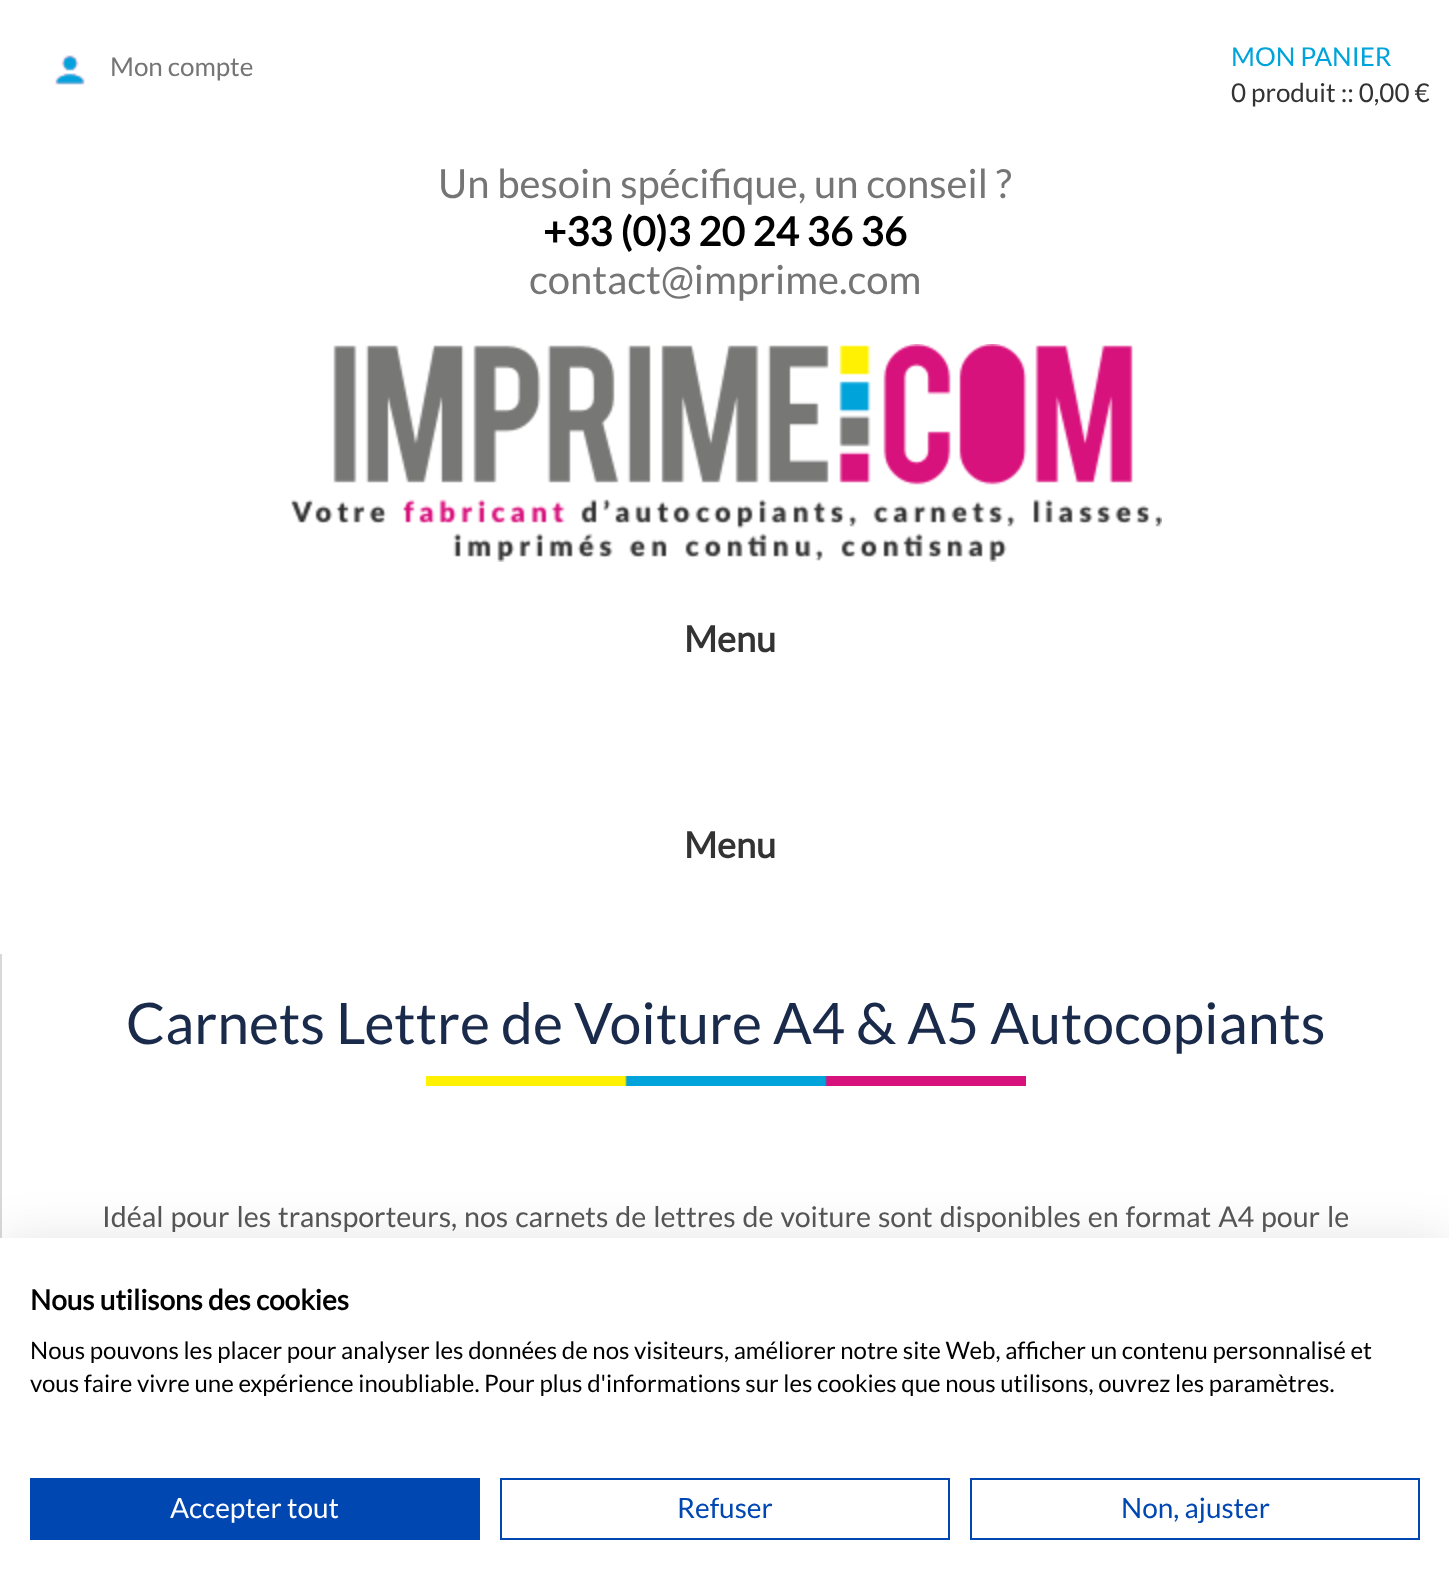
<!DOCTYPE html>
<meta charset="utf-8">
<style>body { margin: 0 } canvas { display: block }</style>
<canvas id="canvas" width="1449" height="1593"></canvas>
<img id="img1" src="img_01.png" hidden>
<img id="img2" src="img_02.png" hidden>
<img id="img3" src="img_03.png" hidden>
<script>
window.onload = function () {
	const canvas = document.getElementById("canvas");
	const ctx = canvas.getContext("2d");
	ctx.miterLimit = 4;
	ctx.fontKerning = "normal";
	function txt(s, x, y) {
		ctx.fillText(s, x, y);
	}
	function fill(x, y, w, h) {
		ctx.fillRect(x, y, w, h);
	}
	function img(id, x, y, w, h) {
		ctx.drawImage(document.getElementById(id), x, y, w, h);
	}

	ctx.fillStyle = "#FFFFFF";
	fill(0, 0, 1449, 1593);
	img("img1", 55, 55, 30, 30);
	img("img2", 290, 344, 872, 218);
	ctx.fillStyle = "#D8D8D8";
	fill(0, 954, 2, 284);
	img("img3", 426, 1076, 600, 10);
	ctx.fillStyle = "rgba(0, 0, 0, 0.1)";
	ctx.filter = "blur(24px)";
	ctx.beginPath();
	ctx.rect(0, 1238, 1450, 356);
	ctx.fill();
	ctx.filter = "none";
	ctx.fillStyle = "#FFFFFF";
	fill(0, 1238, 1449, 355);
	ctx.fillStyle = "#0047B2";
	fill(30, 1478, 450, 62);
	ctx.strokeStyle = "#0047B2";
	ctx.lineWidth = 2;
	ctx.strokeRect(501, 1479, 448, 60);
	ctx.strokeRect(971, 1479, 448, 60);
	ctx.font = "26px Lato";
	ctx.fillStyle = "#757575";
	txt("Mon compte", 110, 76);
	ctx.fillStyle = "#00A3DA";
	txt("MON PANIER", 1231, 66);
	ctx.fillStyle = "#333333";
	txt("0 produit :: 0,00 €", 1231, 102);
	ctx.font = "40px Lato";
	ctx.fillStyle = "#757575";
	txt("Un besoin spécifique, un conseil ?", 438, 198);
	ctx.font = "bold 40px Lato";
	ctx.fillStyle = "#000000";
	txt("+33 (0)3 20 24 36 36", 543, 246);
	ctx.font = "40px Lato";
	ctx.fillStyle = "#757575";
	txt("contact@imprime.com", 529, 294);
	ctx.font = "bold 36px Lato";
	ctx.fillStyle = "#333333";
	txt("Menu", 684, 652);
	txt("Menu", 684, 858);
	ctx.font = "57.2px Lato";
	ctx.fillStyle = "#1A2A4B";
	txt("Carnets Lettre de Voiture A4 & A5 Autocopiants", 126, 1044);
	ctx.wordSpacing = "1.4px";
	ctx.font = "28.6px Lato";
	ctx.fillStyle = "#555555";
	txt("Idéal pour les transporteurs, nos carnets de lettres de voiture sont disponibles en format A4 pour le", 102, 1227);
	ctx.wordSpacing = "0px";
	ctx.font = "bold 28px Lato";
	ctx.fillStyle = "#000000";
	txt("Nous utilisons des cookies", 30, 1310);
	ctx.font = "24px Lato";
	txt("Nous pouvons les placer pour analyser les données de nos visiteurs, améliorer notre site Web, afficher un contenu personnalisé et", 30, 1359);
	txt("vous faire vivre une expérience inoubliable. Pour plus d'informations sur les cookies que nous utilisons, ouvrez les paramètres.", 30, 1392);
	ctx.font = "28px Lato";
	ctx.fillStyle = "#FFFFFF";
	txt("Accepter tout", 170, 1518);
	ctx.fillStyle = "#0047B2";
	txt("Refuser", 677, 1518);
	txt("Non, ajuster", 1121, 1518);
};
</script>
